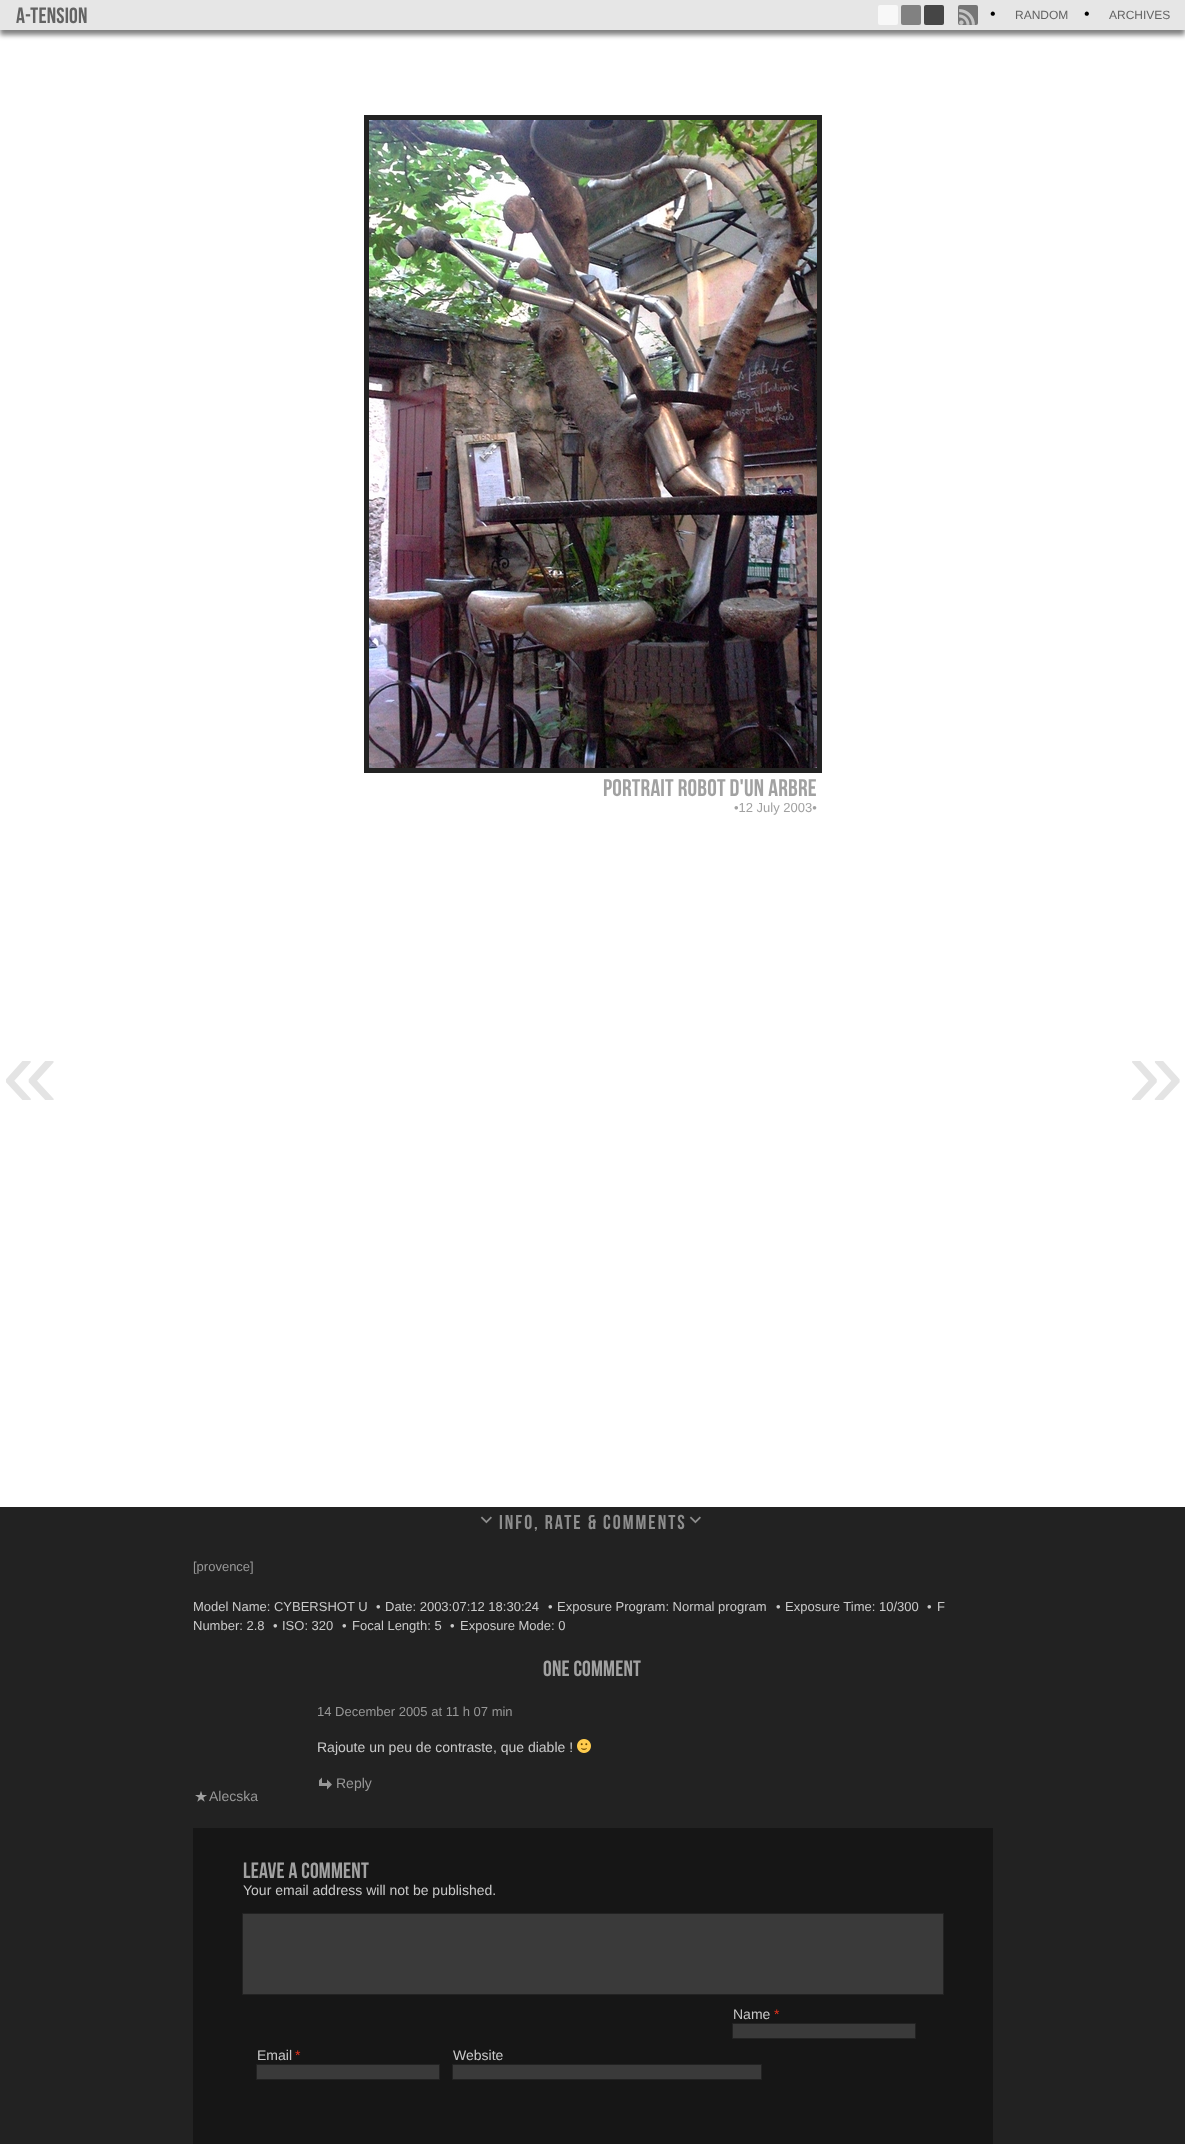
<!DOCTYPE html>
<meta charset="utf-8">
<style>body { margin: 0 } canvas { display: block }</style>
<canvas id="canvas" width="1185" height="2144"></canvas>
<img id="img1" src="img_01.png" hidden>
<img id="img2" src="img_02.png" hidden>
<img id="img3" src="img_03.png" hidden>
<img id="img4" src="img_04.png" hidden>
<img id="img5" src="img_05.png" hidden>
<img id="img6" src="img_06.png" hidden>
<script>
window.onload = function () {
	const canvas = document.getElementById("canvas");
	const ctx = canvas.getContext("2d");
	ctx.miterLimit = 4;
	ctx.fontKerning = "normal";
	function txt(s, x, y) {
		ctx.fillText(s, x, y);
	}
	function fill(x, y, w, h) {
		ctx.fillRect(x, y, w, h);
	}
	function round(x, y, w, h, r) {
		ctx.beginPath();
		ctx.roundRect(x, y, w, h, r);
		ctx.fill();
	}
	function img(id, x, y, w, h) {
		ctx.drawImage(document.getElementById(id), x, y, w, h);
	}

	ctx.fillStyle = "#222222";
	fill(0, 0, 1185, 2144);
	ctx.fillStyle = "#FFFFFF";
	fill(0, 30, 1185, 1477);
	ctx.fillStyle = "rgba(0, 0, 0, 0.5)";
	ctx.filter = "blur(2.5px)";
	ctx.beginPath();
	ctx.rect(0, 5, 1185, 30);
	ctx.fill();
	ctx.filter = "none";
	ctx.fillStyle = "#E6E6E6";
	fill(0, 0, 1185, 30);
	ctx.fillStyle = "#F8F8F8";
	round(878, 5, 20, 20, 2);
	ctx.fillStyle = "#818181";
	round(901, 5, 20, 20, 2);
	ctx.fillStyle = "#454545";
	round(924, 5, 20, 20, 2);
	ctx.fillStyle = "#757575";
	round(958, 5, 20, 20, 2);
	img("img1", 959, 9, 16, 16);
	ctx.fillStyle = "#222222";
	fill(364, 115, 458, 658);
	img("img2", 369, 120, 448, 648);
	img("img3", 480, 1516, 12, 8);
	img("img3", 689, 1516, 12, 8);
	img("img4", 195, 1791, 12, 11);
	img("img5", 577, 1739, 14, 14);
	img("img6", 319, 1777, 13, 13);
	ctx.fillStyle = "#161616";
	fill(193, 1828, 800, 316);
	ctx.fillStyle = "#3A3A3A";
	ctx.beginPath();
	ctx.rect(242.5, 1913.5, 701, 81);
	ctx.fill();
	ctx.strokeStyle = "#222222";
	ctx.stroke();
	ctx.beginPath();
	ctx.rect(732.5, 2023.5, 183, 15);
	ctx.fill();
	ctx.stroke();
	ctx.beginPath();
	ctx.rect(256.5, 2064.5, 183, 15);
	ctx.fill();
	ctx.stroke();
	ctx.beginPath();
	ctx.rect(452.5, 2064.5, 309, 15);
	ctx.fill();
	ctx.stroke();
	ctx.letterSpacing = "0.2px";
	ctx.font = "22px Bebas Neue";
	ctx.fillStyle = "#636363";
	txt("a-tension", 16, 23);
	ctx.letterSpacing = "0px";
	ctx.font = "16px Liberation Sans";
	ctx.fillStyle = "#000000";
	txt("•", 990, 19);
	ctx.font = "12px Liberation Sans";
	ctx.fillStyle = "#636363";
	txt("RANDOM", 1015, 19);
	ctx.font = "16px Liberation Sans";
	ctx.fillStyle = "#000000";
	txt("•", 1084, 19);
	ctx.font = "12px Liberation Sans";
	ctx.fillStyle = "#636363";
	txt("ARCHIVES", 1109, 19);
	ctx.letterSpacing = "0.2px";
	ctx.font = "24px Bebas Neue";
	ctx.fillStyle = "#A1A1A1";
	txt("portrait robot d'un arbre", 603, 796);
	ctx.letterSpacing = "0px";
	ctx.font = "13px Liberation Sans";
	txt("•12 July 2003•", 734, 812);
	ctx.letterSpacing = "2px";
	ctx.font = "20px Bebas Neue";
	ctx.fillStyle = "#8D8D8D";
	txt("Info, rate & Comments", 499, 1529);
	ctx.letterSpacing = "0px";
	ctx.font = "13px Liberation Sans";
	ctx.fillStyle = "#979797";
	txt("[provence]", 193, 1571);
	ctx.fillStyle = "#C9C9C9";
	txt("Model Name: CYBERSHOT U", 193, 1611);
	txt("•", 376, 1611);
	txt("Date: 2003:07:12 18:30:24", 385, 1611);
	txt("•", 548, 1611);
	txt("Exposure Program: Normal program", 557, 1611);
	txt("•", 776, 1611);
	txt("Exposure Time: 10/300", 785, 1611);
	txt("•", 927, 1611);
	txt("F", 937, 1611);
	txt("Number: 2.8", 193, 1630);
	txt("•", 273, 1630);
	txt("ISO: 320", 282, 1630);
	txt("•", 342, 1630);
	txt("Focal Length: 5", 352, 1630);
	txt("•", 450, 1630);
	txt("Exposure Mode: 0", 460, 1630);
	ctx.letterSpacing = "0.2px";
	ctx.font = "22px Bebas Neue";
	ctx.fillStyle = "#A1A1A1";
	txt("One comment", 543, 1676);
	ctx.letterSpacing = "0px";
	ctx.font = "13px Liberation Sans";
	ctx.fillStyle = "#979797";
	txt("14 December 2005 at 11 h 07 min", 317, 1716);
	ctx.font = "14px Liberation Sans";
	txt("Alecska", 209, 1801);
	ctx.fillStyle = "#C9C9C9";
	txt("Rajoute un peu de contraste, que diable !", 317, 1752);
	ctx.fillStyle = "#979797";
	txt("Reply", 336, 1788);
	ctx.letterSpacing = "0.2px";
	ctx.font = "22px Bebas Neue";
	ctx.fillStyle = "#A1A1A1";
	txt("Leave a comment", 243, 1878);
	ctx.letterSpacing = "0px";
	ctx.font = "14px Liberation Sans";
	ctx.fillStyle = "#C9C9C9";
	txt("Your email address will not be published.", 243, 1895);
	txt("Name", 733, 2019);
	ctx.fillStyle = "#ED331C";
	txt("*", 774, 2019);
	ctx.fillStyle = "#C9C9C9";
	txt("Email", 257, 2060);
	ctx.fillStyle = "#ED331C";
	txt("*", 295, 2060);
	ctx.fillStyle = "#C9C9C9";
	txt("Website", 453, 2060);
	ctx.font = "100px Liberation Sans";
	ctx.fillStyle = "#E4E4E4";
	txt("«", 2, 1107);
	txt("»", 1128, 1107);
};
</script>
